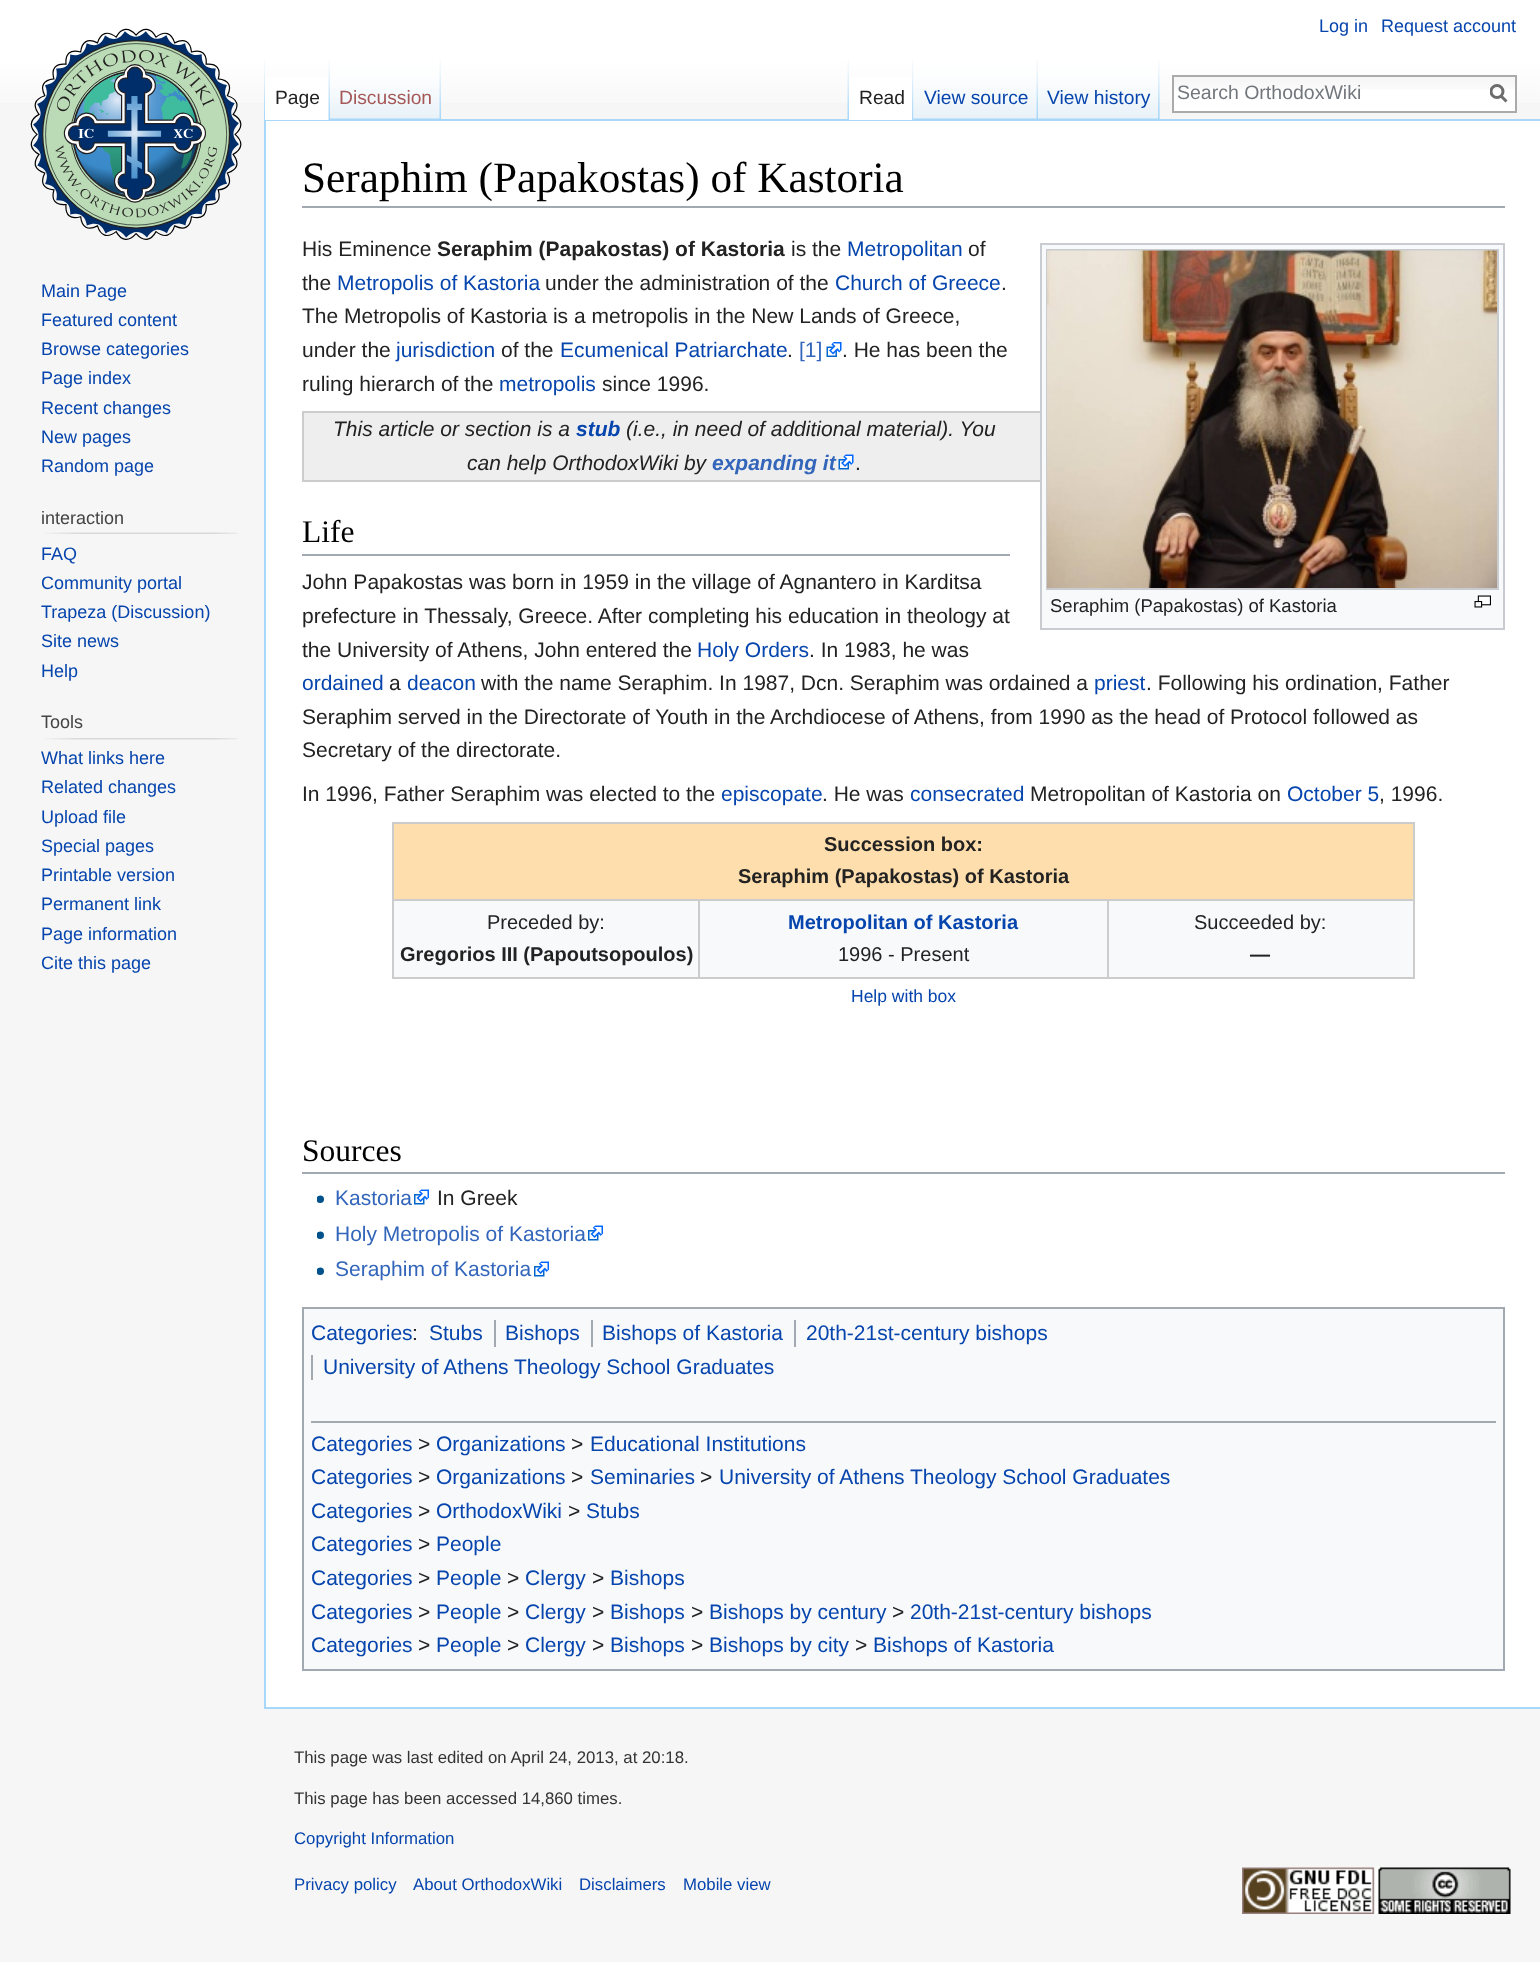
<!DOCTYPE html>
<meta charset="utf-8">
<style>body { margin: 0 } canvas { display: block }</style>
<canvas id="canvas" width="1540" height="1962"></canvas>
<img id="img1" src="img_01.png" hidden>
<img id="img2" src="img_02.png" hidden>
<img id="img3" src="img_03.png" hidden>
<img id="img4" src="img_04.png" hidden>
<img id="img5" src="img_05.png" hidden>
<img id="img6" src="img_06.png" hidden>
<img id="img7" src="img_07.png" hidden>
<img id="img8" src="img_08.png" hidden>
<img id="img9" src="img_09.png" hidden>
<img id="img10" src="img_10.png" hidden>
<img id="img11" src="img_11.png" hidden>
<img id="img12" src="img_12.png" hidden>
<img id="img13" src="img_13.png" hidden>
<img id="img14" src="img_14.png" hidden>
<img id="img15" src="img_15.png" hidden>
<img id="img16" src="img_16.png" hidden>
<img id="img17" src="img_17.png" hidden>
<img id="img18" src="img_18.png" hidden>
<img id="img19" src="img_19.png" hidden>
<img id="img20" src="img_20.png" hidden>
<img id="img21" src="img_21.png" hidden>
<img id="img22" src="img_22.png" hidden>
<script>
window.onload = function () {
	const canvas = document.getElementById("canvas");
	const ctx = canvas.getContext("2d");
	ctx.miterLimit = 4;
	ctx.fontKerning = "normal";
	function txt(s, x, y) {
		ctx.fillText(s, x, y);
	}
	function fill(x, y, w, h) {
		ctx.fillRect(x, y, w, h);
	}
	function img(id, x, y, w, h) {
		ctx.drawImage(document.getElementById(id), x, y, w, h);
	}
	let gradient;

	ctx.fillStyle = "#F6F6F6";
	fill(0, 0, 1540, 1962);
	gradient = ctx.createLinearGradient(770, 0, 770, 120);
	gradient.addColorStop(0.5, "#FFFFFF");
	gradient.addColorStop(1, "#F6F6F6");
	ctx.fillStyle = gradient;
	fill(0, 0, 1540, 103);
	img("img1", 264, 60, 1, 59);
	ctx.fillStyle = "#A7D7F9";
	fill(264, 119, 1276, 2);
	fill(264, 1707, 1276, 2);
	fill(264, 119, 2, 1590);
	ctx.fillStyle = "#FFFFFF";
	fill(265, 77, 64, 43);
	img("img2", 328, 60, 2, 60);
	img("img3", 330, 60, 111, 60);
	img("img4", 439, 60, 2, 59);
	img("img5", 847, 60, 2, 59);
	img("img6", 1159, 60, 1, 59);
	fill(849, 77, 65, 43);
	img("img7", 912, 60, 2, 60);
	img("img8", 913, 60, 125, 60);
	img("img4", 1036, 60, 2, 59);
	img("img9", 1038, 60, 122, 60);
	img("img10", 1158, 60, 2, 60);
	fill(1174, 89, 341, 22);
	img("img11", 1174, 77, 341, 12);
	ctx.strokeStyle = "#AAAAAA";
	ctx.lineWidth = 2;
	ctx.strokeRect(1173, 76, 343, 36);
	ctx.beginPath();
	ctx.moveTo(1506.5, 101.5);
	ctx.lineTo(1500.5, 95.5);
	ctx.strokeStyle = "#6C6C6C";
	ctx.lineWidth = 3;
	ctx.stroke();
	ctx.save();
	ctx.beginPath();
	ctx.rect(1490, 84, 18, 20);
	ctx.clip();
	ctx.beginPath();
	ctx.arc(1497, 91.5, 6, 0, Math.PI * 2);
	ctx.stroke();
	ctx.restore();
	img("img12", 30, 28, 212, 212);
	img("img13", 44, 532, 193, 2);
	img("img14", 44, 738, 193, 2);
	fill(266, 121, 1274, 1586);
	ctx.fillStyle = "#A2A9B1";
	fill(302, 206, 1203, 2);
	img("img15", 826, 342, 16, 15);
	ctx.fillStyle = "#EEEEEE";
	fill(304, 413, 736, 67);
	ctx.strokeStyle = "#CCCCCC";
	ctx.lineWidth = 2;
	ctx.strokeRect(303, 412, 1201, 69);
	img("img16", 838, 454, 16, 16);
	ctx.fillStyle = "#A2A9B1";
	fill(302, 554, 708, 2);
	ctx.fillStyle = "#F8F9FA";
	ctx.beginPath();
	ctx.rect(1041, 244, 463, 385);
	ctx.fill();
	ctx.strokeStyle = "#C8CCD1";
	ctx.stroke();
	ctx.strokeRect(1047, 250, 451, 339);
	img("img17", 1047, 250, 450, 338);
	img("img18", 1474, 595, 17, 13);
	fill(394, 901, 1019, 76);
	ctx.fillStyle = "#CCCCCC";
	fill(392, 822, 1023, 2);
	fill(1413, 822, 2, 156);
	fill(392, 977, 1023, 2);
	fill(392, 822, 2, 156);
	ctx.fillStyle = "#FFDEAD";
	fill(394, 824, 1019, 75);
	ctx.fillStyle = "#CCCCCC";
	fill(1107, 899, 308, 2);
	fill(1107, 899, 2, 79);
	fill(698, 899, 411, 2);
	fill(698, 899, 2, 79);
	fill(392, 899, 307, 2);
	ctx.fillStyle = "#A2A9B1";
	fill(302, 1172, 1203, 2);
	img("img19", 317, 1195, 7, 8);
	img("img20", 414, 1189, 15, 16);
	img("img19", 317, 1231, 7, 8);
	img("img20", 588, 1225, 15, 16);
	img("img21", 317, 1267, 7, 8);
	img("img20", 534, 1261, 15, 16);
	ctx.fillStyle = "#F8F9FA";
	ctx.beginPath();
	ctx.rect(303, 1308, 1201, 362);
	ctx.fill();
	ctx.strokeStyle = "#A2A9B1";
	ctx.stroke();
	ctx.fillStyle = "#A2A9B1";
	fill(494, 1320, 2, 27);
	fill(591, 1320, 2, 27);
	fill(794, 1320, 2, 27);
	fill(311, 1355, 2, 25);
	fill(311, 1421, 1185, 2);
	img("img22", 1242, 1867, 269, 47);
	ctx.font = "18px Liberation Sans";
	ctx.fillStyle = "#0645AD";
	txt("Log in", 1319, 32);
	txt("Request account", 1381, 32);
	ctx.font = "19.25px Liberation Sans";
	ctx.fillStyle = "#222222";
	txt("Page", 275, 104);
	ctx.fillStyle = "#A55858";
	txt("Discussion", 339, 104);
	ctx.fillStyle = "#222222";
	txt("Read", 859, 104);
	ctx.fillStyle = "#0645AD";
	txt("View source", 924, 104);
	txt("View history", 1047, 104);
	ctx.font = "19.5px Liberation Sans";
	ctx.fillStyle = "#72777D";
	txt("Search OrthodoxWiki", 1177, 99);
	ctx.font = "18px Liberation Sans";
	ctx.fillStyle = "#0645AD";
	txt("Main Page", 41, 297);
	txt("Featured content", 41, 326);
	txt("Browse categories", 41, 355);
	txt("Page index", 41, 384);
	txt("Recent changes", 41, 414);
	txt("New pages", 41, 443);
	txt("Random page", 41, 472);
	ctx.fillStyle = "#444444";
	txt("interaction", 41, 524);
	ctx.fillStyle = "#0645AD";
	txt("FAQ", 41, 560);
	txt("Community portal", 41, 589);
	txt("Trapeza (Discussion)", 41, 618);
	txt("Site news", 41, 647);
	txt("Help", 41, 677);
	ctx.fillStyle = "#444444";
	txt("Tools", 41, 728);
	ctx.fillStyle = "#0645AD";
	txt("What links here", 41, 764);
	txt("Related changes", 41, 793);
	txt("Upload file", 41, 823);
	txt("Special pages", 41, 852);
	txt("Printable version", 41, 881);
	txt("Permanent link", 41, 910);
	txt("Page information", 41, 940);
	txt("Cite this page", 41, 969);
	ctx.font = "43.25px Liberation Serif";
	ctx.fillStyle = "#000000";
	txt("Seraphim (Papakostas) of Kastoria", 302, 192);
	ctx.font = "21px Liberation Sans";
	ctx.fillStyle = "#222222";
	txt("His Eminence", 302, 256);
	ctx.font = "bold 21px Liberation Sans";
	txt("Seraphim (Papakostas) of Kastoria", 437, 256);
	ctx.font = "21px Liberation Sans";
	txt("is the", 791, 256);
	ctx.fillStyle = "#0645AD";
	txt("Metropolitan", 847, 256);
	ctx.fillStyle = "#222222";
	txt("of", 968, 256);
	txt("the", 302, 290);
	ctx.fillStyle = "#0645AD";
	txt("Metropolis of Kastoria", 337, 290);
	ctx.fillStyle = "#222222";
	txt("under the administration of the", 545, 290);
	ctx.fillStyle = "#0645AD";
	txt("Church of Greece", 835, 290);
	ctx.fillStyle = "#222222";
	txt(".", 1001, 290);
	txt("The Metropolis of Kastoria is a metropolis in the New Lands of Greece,", 302, 323);
	txt("under the", 302, 357);
	ctx.fillStyle = "#0645AD";
	txt("jurisdiction", 396, 357);
	ctx.fillStyle = "#222222";
	txt("of the", 501, 357);
	ctx.fillStyle = "#0645AD";
	txt("Ecumenical Patriarchate", 560, 357);
	ctx.fillStyle = "#222222";
	txt(".", 787, 357);
	ctx.fillStyle = "#3366BB";
	txt("[1]", 799, 357);
	ctx.fillStyle = "#222222";
	txt(". He has been the", 842, 357);
	txt("ruling hierarch of the", 302, 391);
	ctx.fillStyle = "#0645AD";
	txt("metropolis", 499, 391);
	ctx.fillStyle = "#222222";
	txt("since 1996.", 602, 391);
	ctx.font = "italic 21px Liberation Sans";
	txt("This article or section is a", 333, 436);
	ctx.font = "italic bold 21px Liberation Sans";
	ctx.fillStyle = "#0645AD";
	txt("stub", 576, 436);
	ctx.font = "italic 21px Liberation Sans";
	ctx.fillStyle = "#222222";
	txt("(i.e., in need of additional material). You", 626, 436);
	txt("can help OrthodoxWiki by", 467, 470);
	ctx.font = "italic bold 21px Liberation Sans";
	ctx.fillStyle = "#3366BB";
	txt("expanding it", 712, 470);
	ctx.font = "21px Liberation Sans";
	ctx.fillStyle = "#222222";
	txt(".", 855, 470);
	ctx.font = "31.5px Liberation Serif";
	ctx.fillStyle = "#000000";
	txt("Life", 302, 542);
	ctx.font = "21px Liberation Sans";
	ctx.fillStyle = "#222222";
	txt("John Papakostas was born in 1959 in the village of Agnantero in Karditsa", 302, 589);
	txt("prefecture in Thessaly, Greece. After completing his education in theology at", 302, 623);
	txt("the University of Athens, John entered the", 302, 657);
	ctx.fillStyle = "#0645AD";
	txt("Holy Orders", 697, 657);
	ctx.fillStyle = "#222222";
	txt(". In 1983, he was", 809, 657);
	ctx.fillStyle = "#0645AD";
	txt("ordained", 302, 690);
	ctx.fillStyle = "#222222";
	txt("a", 389, 690);
	ctx.fillStyle = "#0645AD";
	txt("deacon", 407, 690);
	ctx.fillStyle = "#222222";
	txt("with the name Seraphim. In 1987, Dcn. Seraphim was ordained a", 481, 690);
	ctx.fillStyle = "#0645AD";
	txt("priest", 1094, 690);
	ctx.fillStyle = "#222222";
	txt(". Following his ordination, Father", 1146, 690);
	txt("Seraphim served in the Directorate of Youth in the Archdiocese of Athens, from 1990 as the head of Protocol followed as", 302, 724);
	txt("Secretary of the directorate.", 302, 757);
	ctx.font = "18.5px Liberation Sans";
	txt("Seraphim (Papakostas) of Kastoria", 1050, 612);
	ctx.font = "21px Liberation Sans";
	txt("In 1996, Father Seraphim was elected to the", 302, 801);
	ctx.fillStyle = "#0645AD";
	txt("episcopate", 721, 801);
	ctx.fillStyle = "#222222";
	txt(". He was", 822, 801);
	ctx.fillStyle = "#0645AD";
	txt("consecrated", 910, 801);
	ctx.fillStyle = "#222222";
	txt("Metropolitan of Kastoria on", 1030, 801);
	ctx.fillStyle = "#0645AD";
	txt("October 5", 1287, 801);
	ctx.fillStyle = "#222222";
	txt(", 1996.", 1379, 801);
	ctx.font = "bold 20px Liberation Sans";
	txt("Succession box:", 824, 851);
	txt("Seraphim (Papakostas) of Kastoria", 738, 883);
	ctx.font = "20px Liberation Sans";
	txt("Preceded by:", 487, 929);
	ctx.font = "bold 20px Liberation Sans";
	txt("Gregorios III (Papoutsopoulos)", 400, 961);
	ctx.fillStyle = "#0645AD";
	txt("Metropolitan of Kastoria", 788, 929);
	ctx.font = "20px Liberation Sans";
	ctx.fillStyle = "#222222";
	txt("1996 - Present", 838, 961);
	txt("Succeeded by:", 1194, 929);
	ctx.font = "bold 20px Liberation Sans";
	txt("—", 1250, 961);
	ctx.font = "17.5px Liberation Sans";
	ctx.fillStyle = "#0645AD";
	txt("Help with box", 851, 1002);
	ctx.font = "31.5px Liberation Serif";
	ctx.fillStyle = "#000000";
	txt("Sources", 302, 1161);
	ctx.font = "21px Liberation Sans";
	ctx.fillStyle = "#3366BB";
	txt("Kastoria", 335, 1205);
	ctx.fillStyle = "#222222";
	txt("In Greek", 437, 1205);
	ctx.fillStyle = "#3366BB";
	txt("Holy Metropolis of Kastoria", 335, 1241);
	txt("Seraphim of Kastoria", 335, 1276);
	ctx.fillStyle = "#0645AD";
	txt("Categories", 311, 1340);
	txt("Stubs", 429, 1340);
	txt("Bishops", 505, 1340);
	txt("Bishops of Kastoria", 602, 1340);
	txt("20th-21st-century bishops", 806, 1340);
	txt("University of Athens Theology School Graduates", 323, 1374);
	ctx.fillStyle = "#222222";
	txt(":", 412, 1340);
	ctx.fillStyle = "#0645AD";
	txt("Categories", 311, 1451);
	ctx.fillStyle = "#222222";
	txt(">", 418, 1451);
	ctx.fillStyle = "#0645AD";
	txt("Organizations", 436, 1451);
	ctx.fillStyle = "#222222";
	txt(">", 571, 1451);
	ctx.fillStyle = "#0645AD";
	txt("Educational Institutions", 590, 1451);
	txt("Categories", 311, 1484);
	ctx.fillStyle = "#222222";
	txt(">", 418, 1484);
	ctx.fillStyle = "#0645AD";
	txt("Organizations", 436, 1484);
	ctx.fillStyle = "#222222";
	txt(">", 571, 1484);
	ctx.fillStyle = "#0645AD";
	txt("Seminaries", 590, 1484);
	ctx.fillStyle = "#222222";
	txt(">", 700, 1484);
	ctx.fillStyle = "#0645AD";
	txt("University of Athens Theology School Graduates", 719, 1484);
	txt("Categories", 311, 1518);
	ctx.fillStyle = "#222222";
	txt(">", 418, 1518);
	ctx.fillStyle = "#0645AD";
	txt("OrthodoxWiki", 436, 1518);
	ctx.fillStyle = "#222222";
	txt(">", 568, 1518);
	ctx.fillStyle = "#0645AD";
	txt("Stubs", 586, 1518);
	txt("Categories", 311, 1551);
	ctx.fillStyle = "#222222";
	txt(">", 418, 1551);
	ctx.fillStyle = "#0645AD";
	txt("People", 436, 1551);
	txt("Categories", 311, 1585);
	ctx.fillStyle = "#222222";
	txt(">", 418, 1585);
	ctx.fillStyle = "#0645AD";
	txt("People", 436, 1585);
	ctx.fillStyle = "#222222";
	txt(">", 507, 1585);
	ctx.fillStyle = "#0645AD";
	txt("Clergy", 525, 1585);
	ctx.fillStyle = "#222222";
	txt(">", 592, 1585);
	ctx.fillStyle = "#0645AD";
	txt("Bishops", 610, 1585);
	txt("Categories", 311, 1619);
	ctx.fillStyle = "#222222";
	txt(">", 418, 1619);
	ctx.fillStyle = "#0645AD";
	txt("People", 436, 1619);
	ctx.fillStyle = "#222222";
	txt(">", 507, 1619);
	ctx.fillStyle = "#0645AD";
	txt("Clergy", 525, 1619);
	ctx.fillStyle = "#222222";
	txt(">", 592, 1619);
	ctx.fillStyle = "#0645AD";
	txt("Bishops", 610, 1619);
	ctx.fillStyle = "#222222";
	txt(">", 691, 1619);
	ctx.fillStyle = "#0645AD";
	txt("Bishops by century", 709, 1619);
	ctx.fillStyle = "#222222";
	txt(">", 892, 1619);
	ctx.fillStyle = "#0645AD";
	txt("20th-21st-century bishops", 910, 1619);
	txt("Categories", 311, 1652);
	ctx.fillStyle = "#222222";
	txt(">", 418, 1652);
	ctx.fillStyle = "#0645AD";
	txt("People", 436, 1652);
	ctx.fillStyle = "#222222";
	txt(">", 507, 1652);
	ctx.fillStyle = "#0645AD";
	txt("Clergy", 525, 1652);
	ctx.fillStyle = "#222222";
	txt(">", 592, 1652);
	ctx.fillStyle = "#0645AD";
	txt("Bishops", 610, 1652);
	ctx.fillStyle = "#222222";
	txt(">", 691, 1652);
	ctx.fillStyle = "#0645AD";
	txt("Bishops by city", 709, 1652);
	ctx.fillStyle = "#222222";
	txt(">", 855, 1652);
	ctx.fillStyle = "#0645AD";
	txt("Bishops of Kastoria", 873, 1652);
	ctx.font = "16.8px Liberation Sans";
	ctx.fillStyle = "#333333";
	txt("This page was last edited on April 24, 2013, at 20:18.", 294, 1763);
	txt("This page has been accessed 14,860 times.", 294, 1804);
	ctx.fillStyle = "#0645AD";
	txt("Copyright Information", 294, 1844);
	txt("Privacy policy", 294, 1890);
	txt("About OrthodoxWiki", 413, 1890);
	txt("Disclaimers", 579, 1890);
	txt("Mobile view", 683, 1890);
};
</script>
